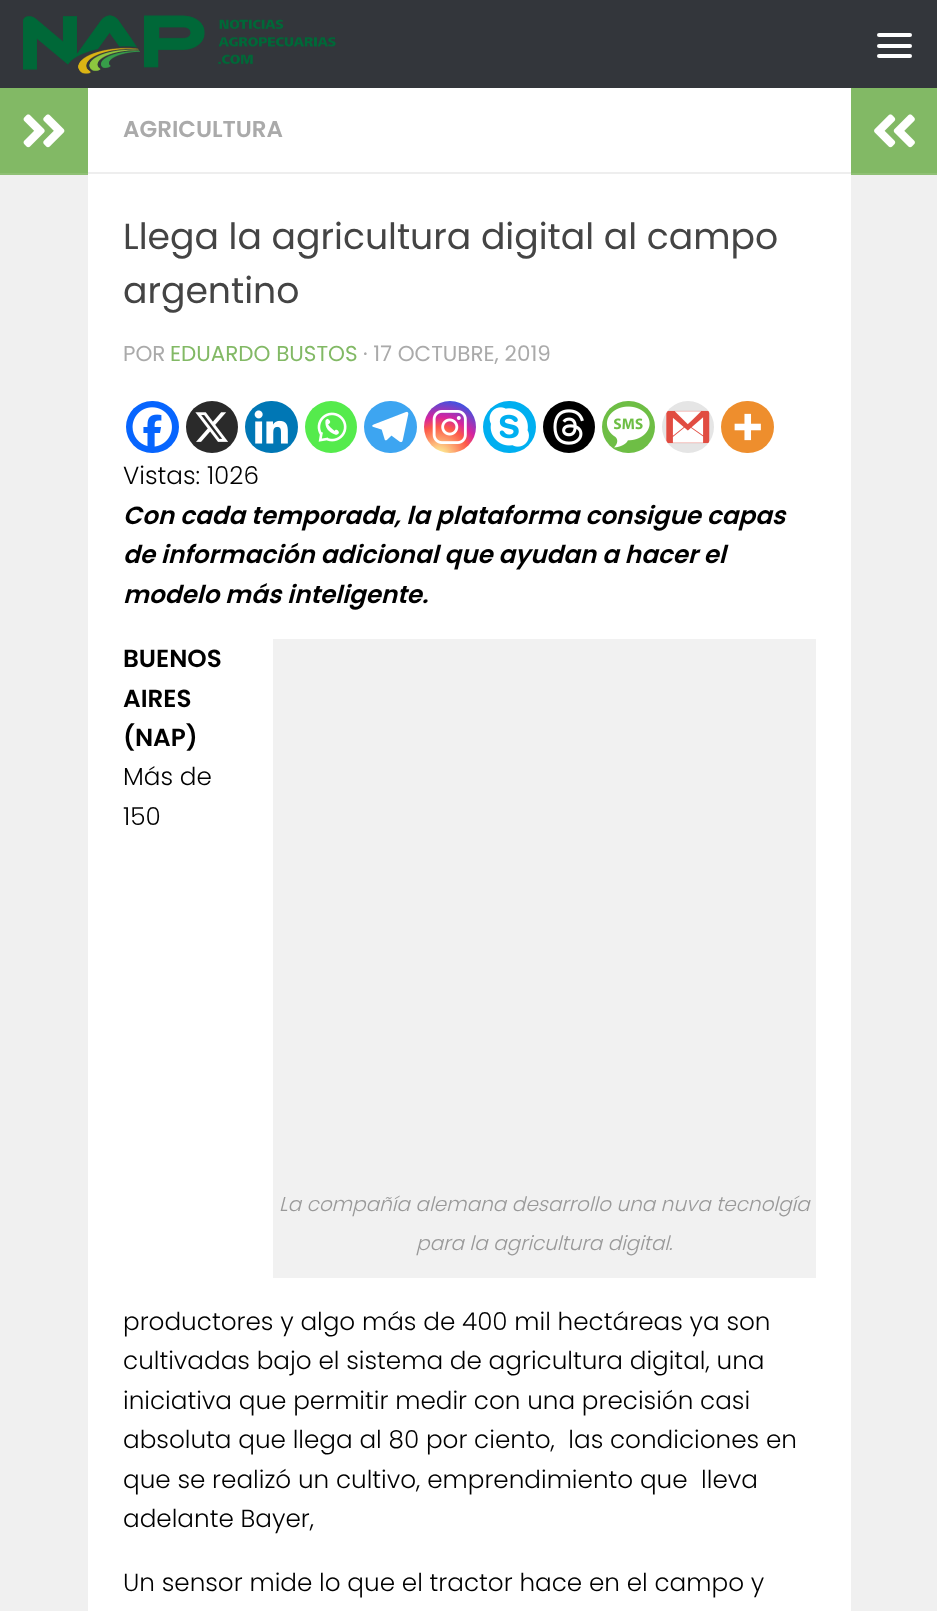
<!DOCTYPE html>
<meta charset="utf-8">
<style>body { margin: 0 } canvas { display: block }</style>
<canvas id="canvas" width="937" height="1611"></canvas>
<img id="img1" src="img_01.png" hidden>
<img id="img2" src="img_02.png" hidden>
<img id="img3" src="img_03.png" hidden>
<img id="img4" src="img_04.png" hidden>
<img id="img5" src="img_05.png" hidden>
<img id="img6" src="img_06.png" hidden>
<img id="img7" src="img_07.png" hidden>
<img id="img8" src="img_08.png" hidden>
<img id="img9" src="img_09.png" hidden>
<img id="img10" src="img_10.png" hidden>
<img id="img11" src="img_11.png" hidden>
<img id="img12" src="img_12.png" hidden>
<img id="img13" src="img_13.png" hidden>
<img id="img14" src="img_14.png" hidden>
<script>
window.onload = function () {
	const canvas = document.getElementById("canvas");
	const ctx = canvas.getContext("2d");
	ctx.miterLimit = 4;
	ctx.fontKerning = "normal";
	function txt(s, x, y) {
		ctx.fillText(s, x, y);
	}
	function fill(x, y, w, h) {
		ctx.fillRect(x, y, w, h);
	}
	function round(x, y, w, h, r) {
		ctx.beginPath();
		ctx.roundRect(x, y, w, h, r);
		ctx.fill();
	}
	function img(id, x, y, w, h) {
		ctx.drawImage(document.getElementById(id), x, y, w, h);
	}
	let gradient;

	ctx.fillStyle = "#FFFFFF";
	fill(0, 0, 937, 1611);
	ctx.fillStyle = "#33363B";
	fill(0, 0, 937, 88);
	img("img1", 23, 15, 313, 59);
	ctx.fillStyle = "#FFFFFF";
	round(877, 33, 35, 4, 2);
	round(877, 44, 35, 4, 2);
	round(877, 54, 35, 4, 2);
	ctx.fillStyle = "#F0F0F0";
	fill(0, 175, 88, 1436);
	ctx.fillStyle = "#82B965";
	fill(0, 88, 88, 85);
	ctx.fillStyle = "#8FC074";
	fill(0, 173, 88, 2);
	img("img2", 23, 114, 42, 34);
	ctx.fillStyle = "#EEEEEE";
	fill(88, 172, 763, 2);
	ctx.fillStyle = "#0765FE";
	round(126, 401, 53, 52, 26);
	img("img3", 132, 407, 40, 40);
	ctx.fillStyle = "#2A2A2A";
	ctx.beginPath();
	ctx.arc(212, 427, 26, 0, Math.PI * 2);
	ctx.fill();
	img("img4", 195, 412, 33, 30);
	ctx.fillStyle = "#0077B5";
	round(245, 401, 53, 52, 26);
	img("img5", 254, 410, 34, 34);
	ctx.fillStyle = "#55EB4C";
	ctx.beginPath();
	ctx.arc(331, 427, 26, 0, Math.PI * 2);
	ctx.fill();
	img("img6", 317, 412, 30, 30);
	ctx.fillStyle = "#3DA5F1";
	round(364, 401, 53, 52, 26);
	img("img7", 372, 411, 37, 32);
	gradient = ctx.createRadialGradient(439, 457, 0, 439, 457, 67);
	gradient.addColorStop(0, "#FDF497");
	gradient.addColorStop(0.05, "#FDF497");
	gradient.addColorStop(0.45, "#FD5949");
	gradient.addColorStop(0.6, "#D6249F");
	gradient.addColorStop(0.9, "#285AEB");
	ctx.fillStyle = gradient;
	ctx.beginPath();
	ctx.arc(450, 427, 26, 0, Math.PI * 2);
	ctx.fill();
	img("img8", 432, 410, 35, 34);
	ctx.fillStyle = "#00AFF0";
	round(483, 401, 53, 52, 26);
	img("img9", 489, 407, 40, 40);
	ctx.fillStyle = "#000000";
	ctx.beginPath();
	ctx.arc(569, 427, 26, 0, Math.PI * 2);
	ctx.fill();
	img("img10", 553, 409, 31, 36);
	ctx.fillStyle = "#6EBE45";
	round(602, 401, 53, 52, 26);
	img("img11", 606, 406, 44, 42);
	ctx.fillStyle = "#E5E5E5";
	ctx.beginPath();
	ctx.arc(688, 427, 26, 0, Math.PI * 2);
	ctx.fill();
	img("img12", 666, 410, 44, 34);
	ctx.fillStyle = "#EE8E2D";
	round(721, 401, 53, 52, 26);
	img("img13", 734, 413, 27, 28);
	ctx.fillStyle = "#F1F1F1";
	fill(273, 639, 543, 639);
	ctx.fillStyle = "#82B965";
	fill(851, 88, 86, 85);
	ctx.fillStyle = "#8FC074";
	fill(851, 173, 86, 2);
	img("img14", 874, 114, 41, 34);
	ctx.fillStyle = "#F0F0F0";
	fill(851, 175, 86, 1436);
	ctx.font = "600 23px Poppins";
	ctx.fillStyle = "#AAAAAA";
	txt("AGRICULTURA", 123, 137);
	ctx.font = "36.2px Poppins";
	ctx.fillStyle = "#444444";
	txt("Llega la agricultura digital al campo", 123, 249);
	txt("argentino", 123, 303);
	ctx.font = "21.5px Poppins";
	ctx.fillStyle = "#AAAAAA";
	txt("POR", 123, 361);
	ctx.fillStyle = "#82B965";
	txt("EDUARDO BUSTOS", 170, 361);
	ctx.fillStyle = "#AAAAAA";
	txt("· 17 OCTUBRE, 2019", 363, 361);
	ctx.font = "300 24.7px Poppins";
	ctx.fillStyle = "#000000";
	txt("Vistas: 1026", 123, 484);
	ctx.font = "italic 600 24.7px Poppins";
	txt("Con cada temporada, la plataforma consigue capas", 123, 524);
	txt("de información adicional que ayudan a hacer el", 123, 563);
	txt("modelo más inteligente.", 123, 603);
	ctx.font = "600 24.7px Poppins";
	txt("BUENOS", 123, 667);
	txt("AIRES", 123, 707);
	txt("(NAP)", 123, 746);
	ctx.font = "300 24.7px Poppins";
	txt("Más de", 123, 785);
	txt("150", 123, 825);
	txt("productores y algo más de 400 mil hectáreas ya son", 123, 1330);
	txt("cultivadas bajo el sistema de agricultura digital, una", 123, 1369);
	txt("iniciativa que permitir medir con una precisión casi", 123, 1409);
	txt("absoluta que llega al 80 por ciento,  las condiciones en", 123, 1448);
	txt("que se realizó un cultivo, emprendimiento que  lleva", 123, 1488);
	txt("adelante Bayer,", 123, 1527);
	ctx.font = "italic 300 20.05px Poppins";
	ctx.fillStyle = "#999999";
	txt("La compañía alemana desarrollo una nuva tecnolgía", 279, 1211);
	txt("para la agricultura digital.", 416, 1250);
	ctx.font = "300 24.7px Poppins";
	ctx.fillStyle = "#000000";
	txt("Un sensor mide lo que el tractor hace en el campo y", 123, 1591);
};
</script>
